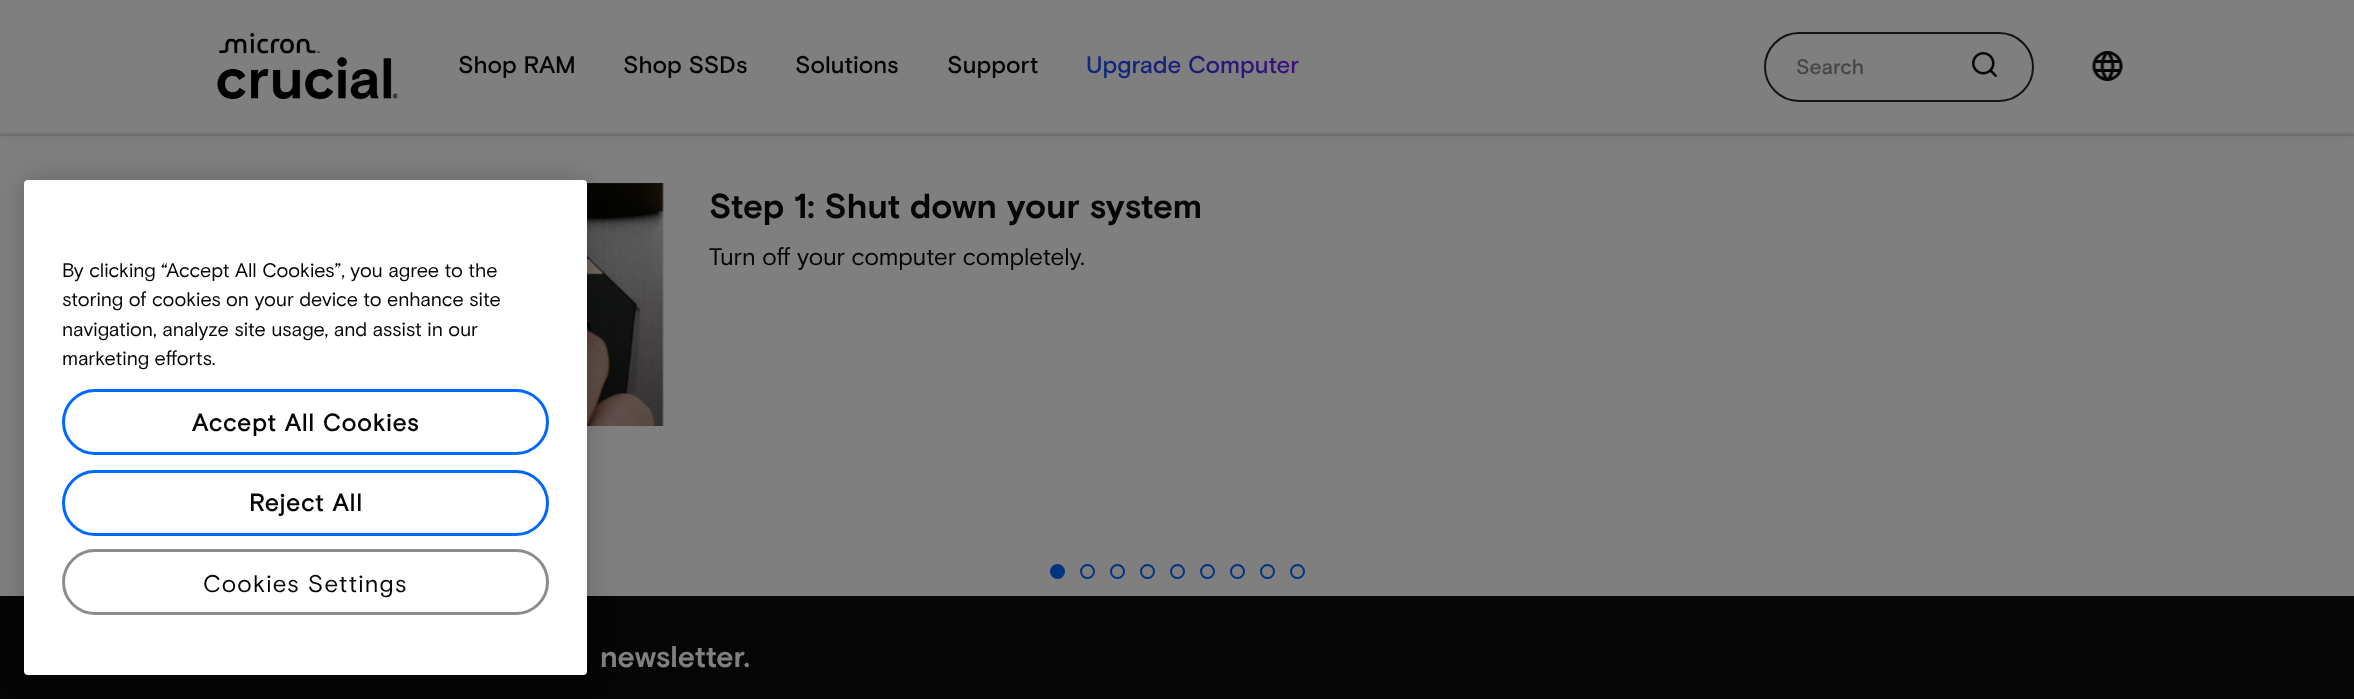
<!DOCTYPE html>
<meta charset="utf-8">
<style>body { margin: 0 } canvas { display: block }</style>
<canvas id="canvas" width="2354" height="699"></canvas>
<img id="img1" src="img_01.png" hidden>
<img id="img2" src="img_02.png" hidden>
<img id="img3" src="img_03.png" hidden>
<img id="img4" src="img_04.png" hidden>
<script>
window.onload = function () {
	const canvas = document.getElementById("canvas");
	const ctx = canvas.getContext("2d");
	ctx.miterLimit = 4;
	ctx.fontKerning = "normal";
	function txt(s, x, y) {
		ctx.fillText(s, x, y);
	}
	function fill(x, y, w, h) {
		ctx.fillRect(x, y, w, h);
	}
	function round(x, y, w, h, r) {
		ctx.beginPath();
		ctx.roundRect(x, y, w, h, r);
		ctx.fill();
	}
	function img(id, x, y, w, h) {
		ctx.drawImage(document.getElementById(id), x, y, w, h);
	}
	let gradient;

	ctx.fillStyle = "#7F7F7F";
	fill(0, 0, 2354, 699);
	ctx.fillStyle = "#737373";
	fill(0, 134, 2354, 2);
	ctx.fillStyle = "rgba(5, 5, 5, 0.1)";
	ctx.filter = "blur(4.5px)";
	ctx.beginPath();
	ctx.rect(0, 0, 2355, 134);
	ctx.fill();
	ctx.filter = "none";
	ctx.fillStyle = "#7F7F7F";
	fill(0, 0, 2354, 132);
	img("img1", 217, 33, 181, 66);
	ctx.beginPath();
	ctx.roundRect(1765, 33, 268, 68, 34);
	ctx.strokeStyle = "#131313";
	ctx.lineWidth = 2;
	ctx.stroke();
	img("img2", 1972, 52, 25, 25);
	img("img3", 2092, 51, 31, 30);
	img("img4", 586, 183, 78, 243);
	ctx.fillStyle = "#003480";
	ctx.beginPath();
	ctx.arc(1057.5, 571.5, 6.5, 0, Math.PI * 2);
	ctx.fill();
	ctx.strokeStyle = "#003480";
	ctx.stroke();
	ctx.beginPath();
	ctx.arc(1087.5, 571.5, 6.5, 0, Math.PI * 2);
	ctx.stroke();
	ctx.beginPath();
	ctx.arc(1117.5, 571.5, 6.5, 0, Math.PI * 2);
	ctx.stroke();
	ctx.beginPath();
	ctx.arc(1147.5, 571.5, 6.5, 0, Math.PI * 2);
	ctx.stroke();
	ctx.beginPath();
	ctx.arc(1177.5, 571.5, 6.5, 0, Math.PI * 2);
	ctx.stroke();
	ctx.beginPath();
	ctx.arc(1207.5, 571.5, 6.5, 0, Math.PI * 2);
	ctx.stroke();
	ctx.beginPath();
	ctx.arc(1237.5, 571.5, 6.5, 0, Math.PI * 2);
	ctx.stroke();
	ctx.beginPath();
	ctx.arc(1267.5, 571.5, 6.5, 0, Math.PI * 2);
	ctx.stroke();
	ctx.beginPath();
	ctx.arc(1297.5, 571.5, 6.5, 0, Math.PI * 2);
	ctx.stroke();
	ctx.fillStyle = "#050505";
	fill(0, 596, 2354, 103);
	ctx.fillStyle = "rgba(0, 0, 0, 0.2)";
	ctx.filter = "blur(13.5px)";
	ctx.beginPath();
	ctx.roundRect(24, 180, 563, 495, 4);
	ctx.fill();
	ctx.filter = "none";
	ctx.fillStyle = "#FFFFFF";
	round(24, 180, 563, 495, 4);
	ctx.beginPath();
	ctx.roundRect(63.5, 390.5, 484, 63, 31.5);
	ctx.strokeStyle = "#0068FF";
	ctx.lineWidth = 3;
	ctx.stroke();
	ctx.beginPath();
	ctx.roundRect(63.5, 471.5, 484, 63, 31.5);
	ctx.stroke();
	ctx.beginPath();
	ctx.roundRect(63.5, 550.5, 484, 63, 31.5);
	ctx.strokeStyle = "#8C8C8C";
	ctx.stroke();
	ctx.font = "500 24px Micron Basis";
	ctx.fillStyle = "#050505";
	txt("Shop RAM", 458, 73);
	txt("Shop SSDs", 623, 73);
	txt("Solutions", 795, 73);
	txt("Support", 947, 73);
	gradient = ctx.createLinearGradient(1291, -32, 1095, 164);
	gradient.addColorStop(0, "#5F027C");
	gradient.addColorStop(0.51, "#1B1D7A");
	gradient.addColorStop(1, "#003480");
	ctx.fillStyle = gradient;
	txt("Upgrade Computer", 1086, 73);
	ctx.font = "500 21px Micron Basis";
	ctx.fillStyle = "#464646";
	txt("Search", 1796, 74);
	ctx.font = "bold 34.5px Micron Basis";
	ctx.fillStyle = "#050505";
	txt("Step 1: Shut down your system", 709, 218);
	ctx.font = "24px Micron Basis";
	txt("Turn off your computer completely.", 709, 265);
	ctx.font = "19.7px Micron Basis";
	txt("By clicking “Accept All Cookies”, you agree to the", 62, 277);
	txt("storing of cookies on your device to enhance site", 62, 306);
	txt("navigation, analyze site usage, and assist in our", 62, 336);
	txt("marketing efforts.", 62, 365);
	ctx.letterSpacing = "1.25px";
	ctx.font = "bold 24px 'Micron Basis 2'";
	txt("Accept All Cookies", 192, 431);
	txt("Reject All", 249, 511);
	ctx.font = "24px Micron Basis";
	txt("Cookies Settings", 203, 592);
	ctx.letterSpacing = "0px";
	ctx.font = "bold 30px Micron Basis";
	ctx.fillStyle = "#7F7F7F";
	txt("newsletter.", 600, 667);
};
</script>
